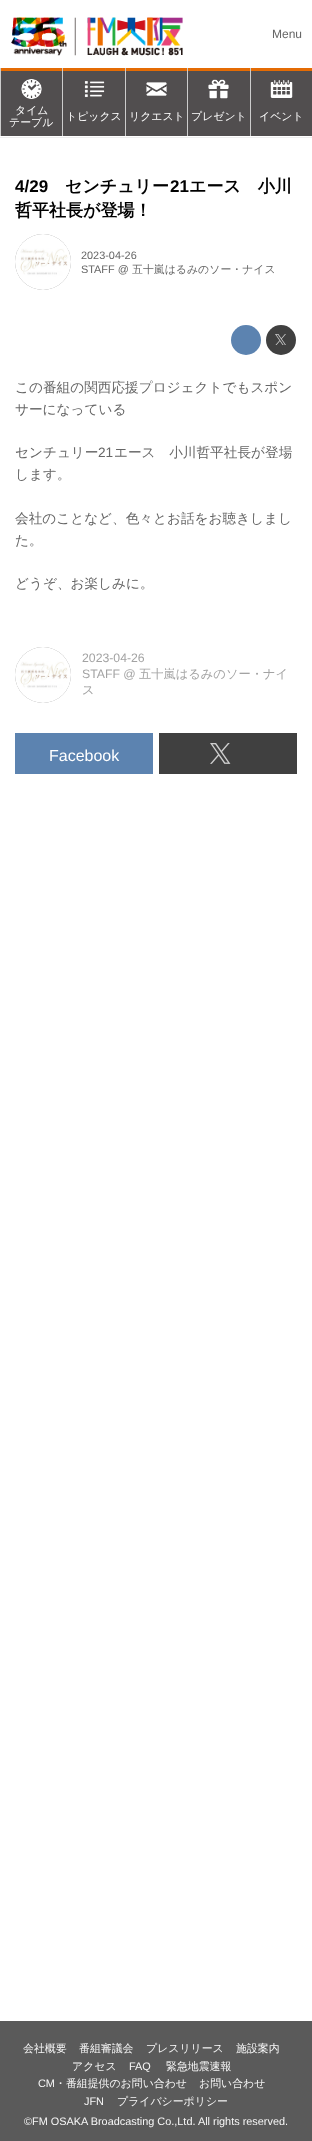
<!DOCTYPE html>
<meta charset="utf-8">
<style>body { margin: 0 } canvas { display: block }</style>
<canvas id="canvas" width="312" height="2141"></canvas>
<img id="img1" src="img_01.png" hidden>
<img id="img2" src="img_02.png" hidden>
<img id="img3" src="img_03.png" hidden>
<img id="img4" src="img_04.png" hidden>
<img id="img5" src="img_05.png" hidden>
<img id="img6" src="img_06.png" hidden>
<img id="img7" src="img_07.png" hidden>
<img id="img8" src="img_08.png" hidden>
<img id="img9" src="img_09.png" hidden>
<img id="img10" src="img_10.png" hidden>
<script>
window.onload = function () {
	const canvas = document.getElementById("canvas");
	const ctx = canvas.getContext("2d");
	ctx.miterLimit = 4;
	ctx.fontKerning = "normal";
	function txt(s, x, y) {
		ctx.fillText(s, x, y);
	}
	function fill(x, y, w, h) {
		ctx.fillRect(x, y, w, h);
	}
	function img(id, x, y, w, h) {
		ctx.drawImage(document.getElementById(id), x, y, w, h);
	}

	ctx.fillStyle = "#FFFFFF";
	fill(0, 0, 312, 2141);
	img("img1", 11, 17, 172, 39);
	ctx.fillStyle = "#514E4F";
	fill(1, 71, 311, 65);
	img("img2", 21, 79, 21, 20);
	ctx.fillStyle = "#E46B04";
	fill(0, 68, 312, 3);
	ctx.fillStyle = "#CCCCCC";
	fill(0, 68, 1, 68);
	img("img3", 84, 81, 21, 17);
	fill(62, 68, 1, 68);
	img("img4", 146, 82, 21, 14);
	fill(125, 68, 1, 68);
	img("img5", 208, 79, 21, 20);
	fill(187, 68, 1, 68);
	img("img6", 270, 80, 23, 18);
	fill(250, 68, 1, 68);
	ctx.fillStyle = "#EEEEEE";
	fill(0, 137, 312, 1);
	ctx.fillStyle = "#888888";
	ctx.beginPath();
	ctx.arc(43, 262, 28, 0, Math.PI * 2);
	ctx.fill();
	img("img7", 15, 234, 56, 56);
	ctx.fillStyle = "#5C83B0";
	ctx.beginPath();
	ctx.arc(246, 340, 15, 0, Math.PI * 2);
	ctx.fill();
	ctx.fillStyle = "#404040";
	ctx.beginPath();
	ctx.arc(281, 340, 15, 0, Math.PI * 2);
	ctx.fill();
	img("img8", 275, 334, 11, 11);
	ctx.fillStyle = "#888888";
	ctx.beginPath();
	ctx.arc(43, 675, 28, 0, Math.PI * 2);
	ctx.fill();
	img("img9", 15, 647, 56, 56);
	ctx.fillStyle = "#5C83B0";
	fill(15, 733, 138, 41);
	ctx.fillStyle = "#404040";
	fill(159, 733, 138, 41);
	img("img10", 210, 743, 21, 21);
	ctx.fillStyle = "#5A5A5A";
	fill(0, 2021, 312, 120);
	ctx.font = "12px Liberation Sans";
	ctx.fillStyle = "#666666";
	txt("Menu", 272, 38);
	ctx.font = "500 10.9px WenQuanYi Zen Hei";
	ctx.fillStyle = "#FFFFFF";
	txt("タイム", 15, 114);
	txt("テーブル", 9, 126);
	txt("トピックス", 66, 120);
	txt("リクエスト", 129, 120);
	txt("プレゼント", 191, 120);
	txt("イベント", 259, 120);
	ctx.font = "bold 17px Liberation Sans";
	ctx.fillStyle = "#000000";
	txt("4/29", 15, 192);
	ctx.font = "bold 17px WenQuanYi Zen Hei";
	txt("センチュリー", 65, 192);
	ctx.font = "bold 17px Liberation Sans";
	txt("21", 170, 192);
	ctx.font = "bold 17px WenQuanYi Zen Hei";
	txt("エース　小川", 189, 192);
	txt("哲平社長が登場！", 15, 216);
	ctx.font = "10.9px Liberation Sans";
	ctx.fillStyle = "#666666";
	txt("2023-04-26", 81, 259);
	txt("STAFF @", 81, 273);
	ctx.font = "500 10.9px WenQuanYi Zen Hei";
	txt("五十嵐はるみのソー・ナイス", 132, 273);
	ctx.font = "500 13.65px WenQuanYi Zen Hei";
	txt("この番組の関西応援プロジェクトでもスポン", 15, 392);
	txt("サーになっている", 15, 414);
	txt("センチュリー", 15, 457);
	ctx.font = "13.65px Liberation Sans";
	txt("21", 98, 457);
	ctx.font = "500 13.65px WenQuanYi Zen Hei";
	txt("エース　小川哲平社長が登場", 114, 457);
	txt("します。", 15, 479);
	txt("会社のことなど、色々とお話をお聴きしまし", 15, 523);
	txt("た。", 15, 545);
	txt("どうぞ、お楽しみに。", 15, 588);
	ctx.font = "12.25px Liberation Sans";
	ctx.fillStyle = "#A3A3A3";
	txt("2023-04-26", 82, 662);
	txt("STAFF @", 82, 678);
	ctx.font = "500 12.25px WenQuanYi Zen Hei";
	txt("五十嵐はるみのソー・ナイ", 139, 678);
	txt("ス", 82, 694);
	ctx.font = "16px Liberation Sans";
	ctx.fillStyle = "#FFFFFF";
	txt("Facebook", 49, 761);
	ctx.font = "500 10.9px WenQuanYi Zen Hei";
	ctx.fillStyle = "#F7F7F7";
	txt("会社概要", 23, 2052);
	txt("番組審議会", 79, 2052);
	txt("プレスリリース", 146, 2052);
	txt("施設案内", 236, 2052);
	txt("アクセス", 72, 2070);
	ctx.font = "10.9px Liberation Sans";
	txt("FAQ", 129, 2070);
	ctx.font = "500 10.9px WenQuanYi Zen Hei";
	txt("緊急地震速報", 166, 2070);
	ctx.font = "10.9px Liberation Sans";
	txt("CM", 38, 2087);
	ctx.font = "500 10.9px WenQuanYi Zen Hei";
	txt("・番組提供のお問い合わせ", 55, 2087);
	txt("お問い合わせ", 199, 2087);
	ctx.font = "10.9px Liberation Sans";
	txt("JFN", 84, 2105);
	ctx.font = "500 10.9px WenQuanYi Zen Hei";
	txt("プライバシーポリシー", 117, 2105);
	ctx.font = "10.9px Liberation Sans";
	txt("©FM OSAKA Broadcasting Co.,Ltd. All rights reserved.", 24, 2125);
};
</script>
